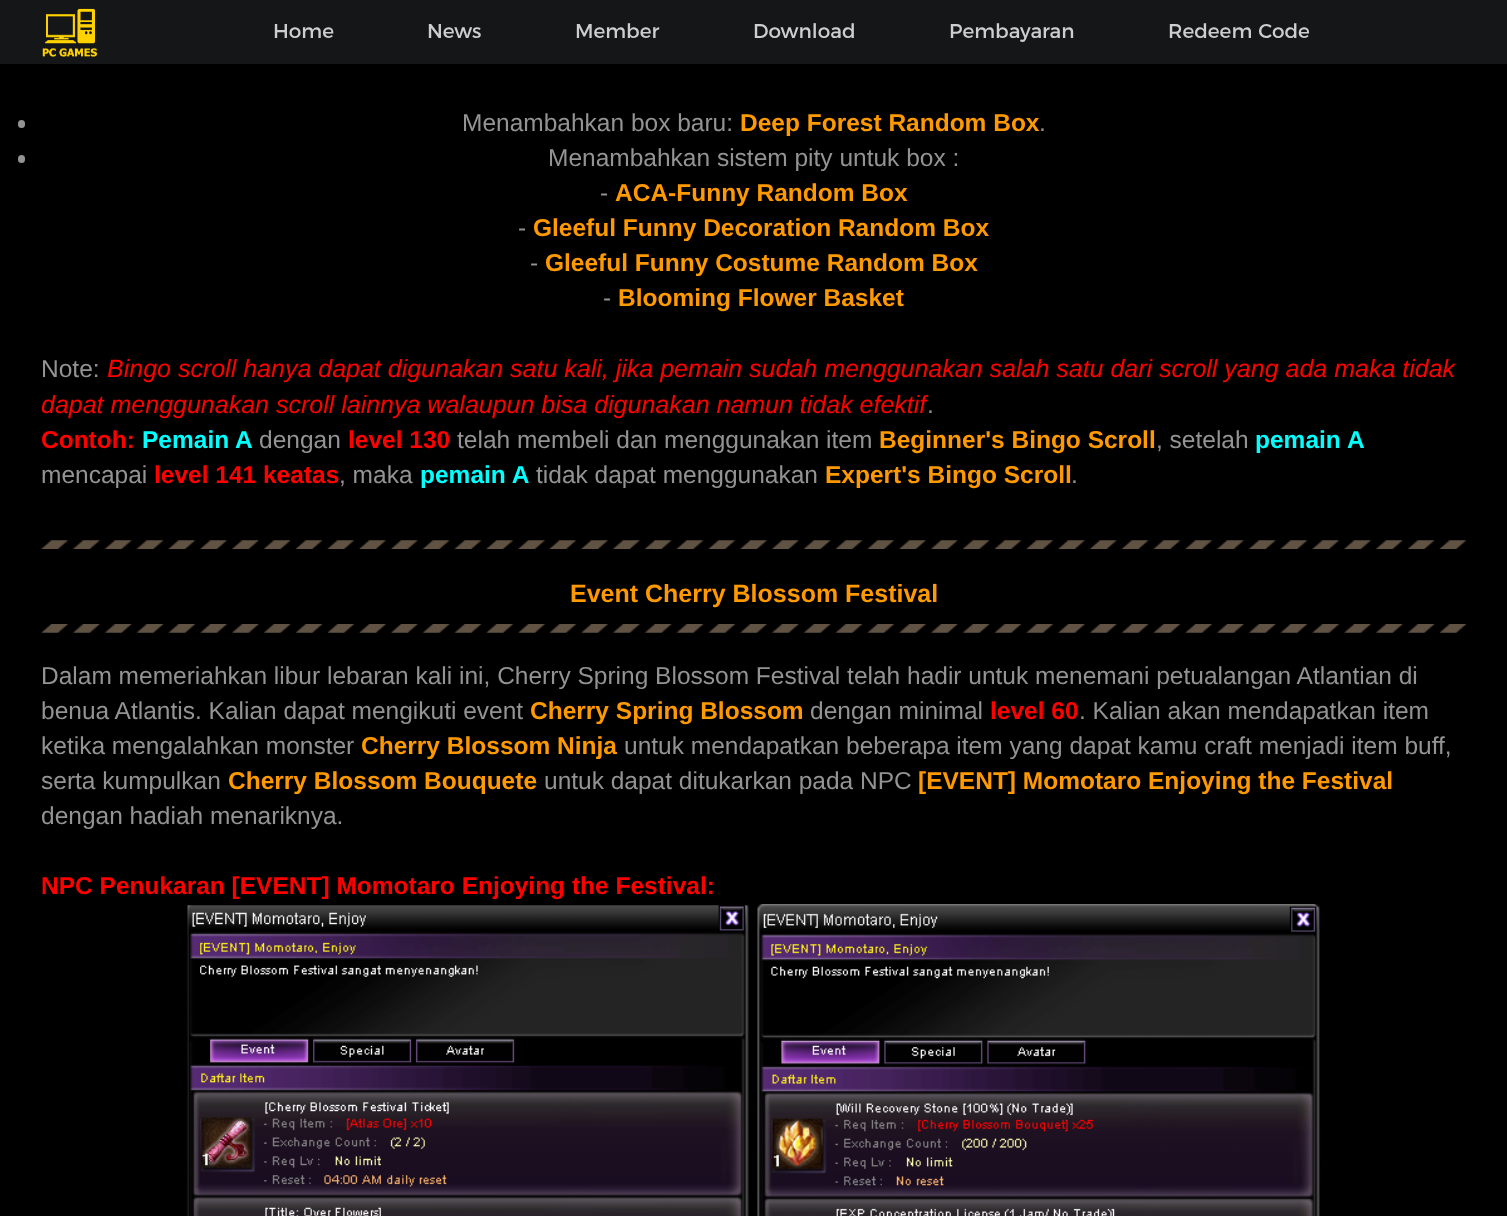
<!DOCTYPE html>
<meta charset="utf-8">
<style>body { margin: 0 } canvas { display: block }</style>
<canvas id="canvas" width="1507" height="1216"></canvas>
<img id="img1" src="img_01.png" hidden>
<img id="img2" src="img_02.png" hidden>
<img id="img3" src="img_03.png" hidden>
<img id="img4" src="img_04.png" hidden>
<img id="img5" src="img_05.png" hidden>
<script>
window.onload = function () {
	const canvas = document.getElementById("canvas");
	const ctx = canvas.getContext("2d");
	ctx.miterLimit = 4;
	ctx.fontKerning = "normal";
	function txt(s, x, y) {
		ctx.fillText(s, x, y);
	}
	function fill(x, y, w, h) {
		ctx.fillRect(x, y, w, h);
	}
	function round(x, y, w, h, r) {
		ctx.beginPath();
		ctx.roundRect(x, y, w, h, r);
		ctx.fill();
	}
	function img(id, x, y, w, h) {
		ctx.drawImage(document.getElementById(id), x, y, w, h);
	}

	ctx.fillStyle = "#000000";
	fill(0, 0, 1507, 1216);
	ctx.fillStyle = "#151618";
	fill(0, 0, 1507, 64);
	img("img1", 42, 8, 55, 49);
	ctx.fillStyle = "#939393";
	round(18, 120, 7, 8, 3.5);
	round(18, 155, 7, 8, 3.5);
	img("img2", 41, 540, 1426, 9);
	img("img3", 41, 624, 1426, 9);
	img("img4", 187, 905, 562, 311);
	img("img5", 757, 904, 563, 312);
	ctx.font = "20px Montserrat";
	ctx.fillStyle = "#CECECE";
	txt("Home", 273, 38);
	txt("News", 427, 38);
	txt("Member", 575, 38);
	txt("Download", 753, 38);
	txt("Pembayaran", 949, 38);
	txt("Redeem Code", 1168, 38);
	ctx.font = "24.5px Liberation Sans";
	ctx.fillStyle = "#939393";
	txt("Menambahkan box baru:", 462, 131);
	ctx.font = "bold 24.5px Liberation Sans";
	ctx.fillStyle = "#FF9900";
	txt("Deep Forest Random Box", 740, 131);
	ctx.font = "24.5px Liberation Sans";
	ctx.fillStyle = "#939393";
	txt(".", 1039, 131);
	txt("Menambahkan sistem pity untuk box :", 548, 166);
	txt("-", 600, 201);
	ctx.font = "bold 24.5px Liberation Sans";
	ctx.fillStyle = "#FF9900";
	txt("ACA-Funny Random Box", 615, 201);
	ctx.font = "24.5px Liberation Sans";
	ctx.fillStyle = "#939393";
	txt("-", 518, 236);
	ctx.font = "bold 24.5px Liberation Sans";
	ctx.fillStyle = "#FF9900";
	txt("Gleeful Funny Decoration Random Box", 533, 236);
	ctx.font = "24.5px Liberation Sans";
	ctx.fillStyle = "#939393";
	txt("-", 530, 271);
	ctx.font = "bold 24.5px Liberation Sans";
	ctx.fillStyle = "#FF9900";
	txt("Gleeful Funny Costume Random Box", 545, 271);
	ctx.font = "24.5px Liberation Sans";
	ctx.fillStyle = "#939393";
	txt("-", 603, 306);
	ctx.font = "bold 24.5px Liberation Sans";
	ctx.fillStyle = "#FF9900";
	txt("Blooming Flower Basket", 618, 306);
	ctx.font = "24.5px Liberation Sans";
	ctx.fillStyle = "#939393";
	txt("Note:", 41, 377);
	ctx.font = "italic 25px Liberation Sans";
	ctx.fillStyle = "#FF0000";
	txt("Bingo scroll hanya dapat digunakan satu kali, jika pemain sudah menggunakan salah satu dari scroll yang ada maka tidak", 107, 377);
	txt("dapat menggunakan scroll lainnya walaupun bisa digunakan namun tidak efektif", 41, 413);
	ctx.font = "24.5px Liberation Sans";
	ctx.fillStyle = "#939393";
	txt(".", 927, 413);
	ctx.font = "bold 24.5px Liberation Sans";
	ctx.fillStyle = "#FF0000";
	txt("Contoh:", 41, 448);
	ctx.fillStyle = "#00FFFF";
	txt("Pemain A", 142, 448);
	ctx.font = "24.5px Liberation Sans";
	ctx.fillStyle = "#939393";
	txt("dengan", 259, 448);
	ctx.font = "bold 24.5px Liberation Sans";
	ctx.fillStyle = "#FF0000";
	txt("level 130", 348, 448);
	ctx.font = "24.5px Liberation Sans";
	ctx.fillStyle = "#939393";
	txt("telah membeli dan menggunakan item", 457, 448);
	ctx.font = "bold 24.5px Liberation Sans";
	ctx.fillStyle = "#FF9900";
	txt("Beginner's Bingo Scroll", 879, 448);
	ctx.font = "24.5px Liberation Sans";
	ctx.fillStyle = "#939393";
	txt(", setelah", 1156, 448);
	ctx.font = "bold 24.5px Liberation Sans";
	ctx.fillStyle = "#00FFFF";
	txt("pemain", 1255, 448);
	txt("A", 1347, 448);
	ctx.font = "24.5px Liberation Sans";
	ctx.fillStyle = "#939393";
	txt("mencapai", 41, 483);
	ctx.font = "bold 24.5px Liberation Sans";
	ctx.fillStyle = "#FF0000";
	txt("level 141 keatas", 154, 483);
	ctx.font = "24.5px Liberation Sans";
	ctx.fillStyle = "#939393";
	txt(", maka", 339, 483);
	ctx.font = "bold 24.5px Liberation Sans";
	ctx.fillStyle = "#00FFFF";
	txt("pemain A", 420, 483);
	ctx.font = "24.5px Liberation Sans";
	ctx.fillStyle = "#939393";
	txt("tidak dapat menggunakan", 536, 483);
	ctx.font = "bold 24.5px Liberation Sans";
	ctx.fillStyle = "#FF9900";
	txt("Expert's Bingo Scroll", 825, 483);
	ctx.font = "24.5px Liberation Sans";
	ctx.fillStyle = "#939393";
	txt(".", 1071, 483);
	ctx.font = "bold 25px Liberation Sans";
	ctx.fillStyle = "#FF9900";
	txt("Event Cherry Blossom Festival", 570, 602);
	ctx.font = "24.5px Liberation Sans";
	ctx.fillStyle = "#939393";
	txt("Dalam memeriahkan libur lebaran kali ini, Cherry Spring Blossom Festival telah hadir untuk menemani petualangan Atlantian di", 41, 684);
	txt("benua Atlantis. Kalian dapat mengikuti event", 41, 719);
	ctx.font = "bold 24.5px Liberation Sans";
	ctx.fillStyle = "#FF9900";
	txt("Cherry Spring Blossom", 530, 719);
	ctx.font = "24.5px Liberation Sans";
	ctx.fillStyle = "#939393";
	txt("dengan minimal", 810, 719);
	ctx.font = "bold 24.5px Liberation Sans";
	ctx.fillStyle = "#FF0000";
	txt("level 60", 990, 719);
	ctx.font = "24.5px Liberation Sans";
	ctx.fillStyle = "#939393";
	txt(". Kalian akan mendapatkan item", 1079, 719);
	txt("ketika mengalahkan monster", 41, 754);
	ctx.font = "bold 24.5px Liberation Sans";
	ctx.fillStyle = "#FF9900";
	txt("Cherry Blossom Ninja", 361, 754);
	ctx.font = "24.5px Liberation Sans";
	ctx.fillStyle = "#939393";
	txt("untuk mendapatkan beberapa item yang dapat kamu craft menjadi item buff,", 624, 754);
	txt("serta kumpulkan", 41, 789);
	ctx.font = "bold 24.5px Liberation Sans";
	ctx.fillStyle = "#FF9900";
	txt("Cherry Blossom Bouquete", 228, 789);
	ctx.font = "24.5px Liberation Sans";
	ctx.fillStyle = "#939393";
	txt("untuk dapat ditukarkan pada NPC", 544, 789);
	ctx.font = "bold 24.5px Liberation Sans";
	ctx.fillStyle = "#FF9900";
	txt("[EVENT] Momotaro Enjoying the Festival", 918, 789);
	ctx.font = "24.5px Liberation Sans";
	ctx.fillStyle = "#939393";
	txt("dengan hadiah menariknya.", 41, 824);
	ctx.font = "bold 24.5px Liberation Sans";
	ctx.fillStyle = "#FF0000";
	txt("NPC Penukaran [EVENT] Momotaro Enjoying the Festival:", 41, 894);
};
</script>
